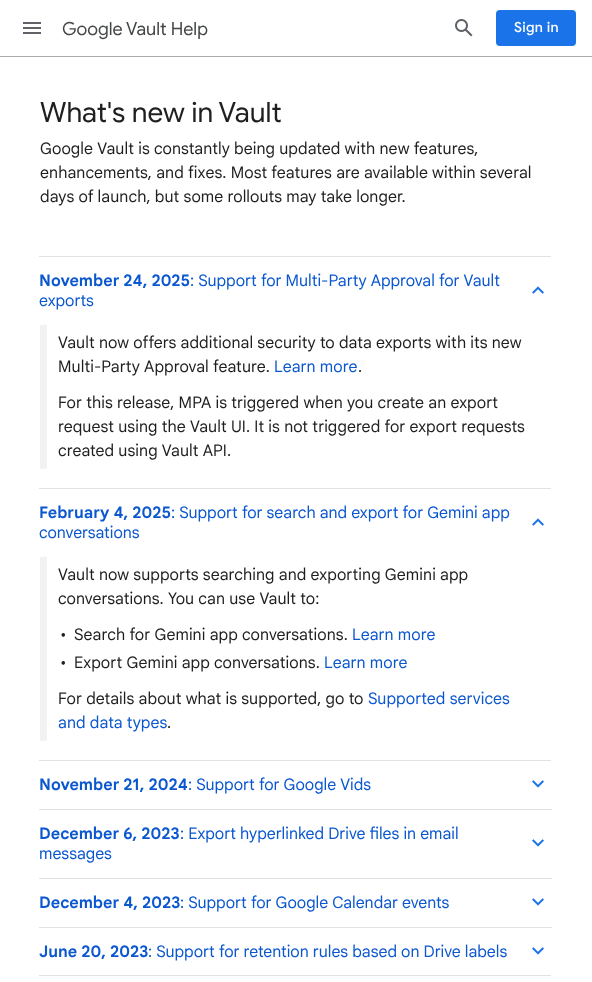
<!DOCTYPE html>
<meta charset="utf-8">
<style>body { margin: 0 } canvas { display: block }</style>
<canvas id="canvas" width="592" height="982"></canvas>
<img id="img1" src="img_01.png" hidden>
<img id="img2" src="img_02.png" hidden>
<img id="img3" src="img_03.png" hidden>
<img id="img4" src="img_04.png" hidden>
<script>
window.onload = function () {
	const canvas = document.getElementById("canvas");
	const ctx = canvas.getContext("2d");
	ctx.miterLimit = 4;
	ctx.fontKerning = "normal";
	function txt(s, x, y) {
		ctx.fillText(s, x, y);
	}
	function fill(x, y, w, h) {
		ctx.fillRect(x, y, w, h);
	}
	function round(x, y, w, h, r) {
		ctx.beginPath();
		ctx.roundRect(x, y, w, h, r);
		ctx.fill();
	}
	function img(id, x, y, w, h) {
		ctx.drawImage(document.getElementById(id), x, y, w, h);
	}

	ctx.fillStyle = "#FFFFFF";
	fill(0, 0, 592, 982);
	img("img1", 23, 22, 18, 12);
	img("img2", 455, 19, 18, 18);
	ctx.fillStyle = "#1A73E8";
	round(496, 10, 80, 36, 4);
	ctx.fillStyle = "#A9ACAA";
	fill(0, 56, 592, 1);
	ctx.fillStyle = "#E1E3E1";
	fill(39, 256, 512, 1);
	img("img3", 532, 286, 12, 8);
	ctx.fillStyle = "#F2F2F2";
	fill(40, 325, 7, 144);
	ctx.fillStyle = "#E1E3E1";
	fill(39, 488, 512, 1);
	img("img3", 532, 518, 12, 8);
	ctx.fillStyle = "#F2F2F2";
	fill(40, 557, 7, 184);
	ctx.fillStyle = "#E1E3E1";
	fill(39, 809, 513, 1);
	fill(39, 760, 512, 1);
	img("img4", 532, 780, 12, 8);
	fill(39, 878, 513, 1);
	img("img4", 532, 839, 12, 8);
	fill(39, 927, 513, 1);
	img("img4", 532, 898, 12, 8);
	img("img4", 532, 947, 12, 8);
	fill(39, 975, 512, 1);
	ctx.font = "18px Google Sans";
	ctx.fillStyle = "#444746";
	txt("Google Vault Help", 62, 35);
	ctx.letterSpacing = "0.25px";
	ctx.font = "500 14px Google Sans";
	ctx.fillStyle = "#FFFFFF";
	txt("Sign in", 514, 32);
	ctx.letterSpacing = "0px";
	ctx.font = "28px Google Sans";
	ctx.fillStyle = "#1F1F1F";
	txt("What's new in Vault", 40, 122);
	ctx.letterSpacing = "0.08px";
	ctx.font = "16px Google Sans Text";
	txt("Google Vault is constantly being updated with new features,", 40, 154);
	txt("enhancements, and fixes. Most features are available within several", 40, 178);
	txt("days of launch, but some rollouts may take longer.", 40, 202);
	ctx.letterSpacing = "0px";
	ctx.font = "bold 16px Google Sans Text";
	ctx.fillStyle = "#0B57D0";
	txt("November 24, 2025", 39, 286);
	ctx.font = "16px Google Sans Text";
	txt(": Support for Multi-Party Approval for Vault", 190, 286);
	txt("exports", 39, 306);
	ctx.letterSpacing = "0.08px";
	ctx.fillStyle = "#1F1F1F";
	txt("Vault now offers additional security to data exports with its new", 58, 348);
	txt("Multi-Party Approval feature.", 58, 372);
	ctx.fillStyle = "#0B57D0";
	txt("Learn more", 274, 372);
	ctx.fillStyle = "#1F1F1F";
	txt(".", 358, 372);
	txt("For this release, MPA is triggered when you create an export", 58, 408);
	txt("request using the Vault UI. It is not triggered for export requests", 58, 432);
	txt("created using Vault API.", 58, 456);
	ctx.letterSpacing = "0px";
	ctx.font = "bold 16px Google Sans Text";
	ctx.fillStyle = "#0B57D0";
	txt("February 4, 2025", 39, 518);
	ctx.font = "16px Google Sans Text";
	txt(": Support for search and export for Gemini app", 171, 518);
	txt("conversations", 39, 538);
	ctx.letterSpacing = "0.08px";
	ctx.fillStyle = "#1F1F1F";
	txt("Vault now supports searching and exporting Gemini app", 58, 580);
	txt("conversations. You can use Vault to:", 58, 604);
	txt("•", 60, 640);
	txt("Search for Gemini app conversations.", 74, 640);
	ctx.fillStyle = "#0B57D0";
	txt("Learn more", 352, 640);
	ctx.fillStyle = "#1F1F1F";
	txt("•", 60, 668);
	txt("Export Gemini app conversations.", 74, 668);
	ctx.fillStyle = "#0B57D0";
	txt("Learn more", 324, 668);
	ctx.fillStyle = "#1F1F1F";
	txt("For details about what is supported, go to", 58, 704);
	ctx.fillStyle = "#0B57D0";
	txt("Supported services", 368, 704);
	txt("and data types", 58, 728);
	ctx.fillStyle = "#1F1F1F";
	txt(".", 167, 728);
	ctx.letterSpacing = "0px";
	ctx.font = "bold 16px Google Sans Text";
	ctx.fillStyle = "#0B57D0";
	txt("November 21, 2024", 39, 790);
	ctx.font = "16px Google Sans Text";
	txt(": Support for Google Vids", 188, 790);
	ctx.font = "bold 16px Google Sans Text";
	txt("December 6, 2023", 39, 839);
	ctx.font = "16px Google Sans Text";
	txt(": Export hyperlinked Drive files in email", 180, 839);
	txt("messages", 39, 859);
	ctx.font = "bold 16px Google Sans Text";
	txt("December 4, 2023", 39, 908);
	ctx.font = "16px Google Sans Text";
	txt(": Support for Google Calendar events", 180, 908);
	ctx.font = "bold 16px Google Sans Text";
	txt("June 20, 2023", 39, 957);
	ctx.font = "16px Google Sans Text";
	txt(": Support for retention rules based on Drive labels", 148, 957);
};
</script>
